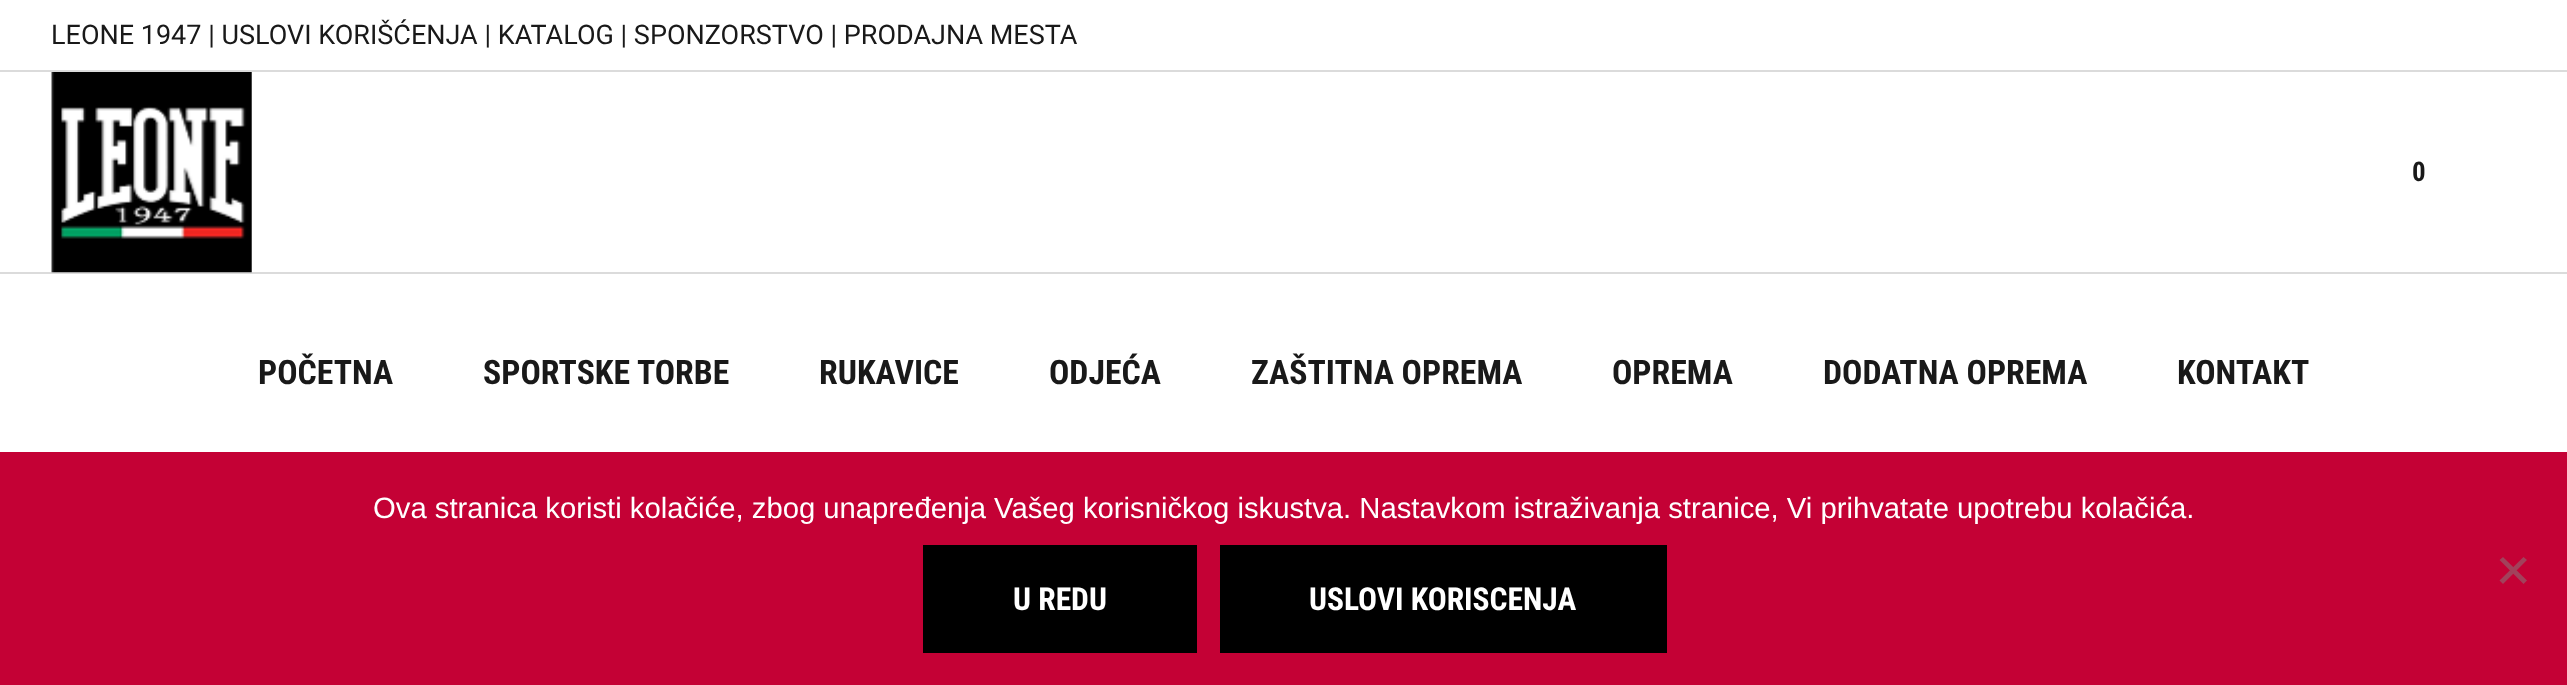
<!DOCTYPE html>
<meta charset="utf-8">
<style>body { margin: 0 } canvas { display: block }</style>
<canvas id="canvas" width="2567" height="685"></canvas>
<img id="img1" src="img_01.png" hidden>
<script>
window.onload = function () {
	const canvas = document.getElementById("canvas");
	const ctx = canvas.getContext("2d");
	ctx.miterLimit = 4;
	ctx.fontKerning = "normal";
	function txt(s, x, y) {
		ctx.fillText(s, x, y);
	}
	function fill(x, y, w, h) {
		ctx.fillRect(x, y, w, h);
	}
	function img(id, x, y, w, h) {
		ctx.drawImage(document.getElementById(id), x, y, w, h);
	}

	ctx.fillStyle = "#FFFFFF";
	fill(0, 0, 2567, 685);
	ctx.fillStyle = "#DBDBDB";
	fill(0, 70, 2567, 2);
	fill(0, 272, 2567, 2);
	img("img1", 51, 72, 201, 201);
	ctx.fillStyle = "#C40135";
	fill(0, 452, 2567, 233);
	ctx.fillStyle = "#A2415B";
	ctx.beginPath();
	ctx.moveTo(2523.5, 557);
	ctx.lineTo(2527, 560);
	ctx.lineTo(2503, 584);
	ctx.lineTo(2499.5, 580.5);
	ctx.closePath();
	ctx.fill();
	ctx.beginPath();
	ctx.moveTo(2499.5, 560);
	ctx.lineTo(2503, 557);
	ctx.lineTo(2527, 580.5);
	ctx.lineTo(2523.5, 584);
	ctx.closePath();
	ctx.fill();
	ctx.fillStyle = "#000000";
	fill(923, 545, 274, 108);
	fill(1220, 545, 447, 108);
	ctx.font = "27px Roboto";
	ctx.fillStyle = "#191919";
	txt("LEONE 1947 | USLOVI KORIŠĆENJA | KATALOG | SPONZORSTVO | PRODAJNA MESTA", 51, 44);
	ctx.font = "bold 27px Roboto Condensed";
	txt("0", 2412, 181);
	ctx.font = "bold 33.75px Roboto Condensed";
	txt("POČETNA", 258, 384);
	txt("SPORTSKE TORBE", 483, 384);
	txt("RUKAVICE", 819, 384);
	txt("ODJEĆA", 1049, 384);
	txt("ZAŠTITNA OPREMA", 1251, 384);
	txt("OPREMA", 1612, 384);
	txt("DODATNA OPREMA", 1823, 384);
	txt("KONTAKT", 2177, 384);
	ctx.font = "29.25px Liberation Sans";
	ctx.fillStyle = "#FFFFFF";
	txt("Ova stranica koristi kolačiće, zbog unapređenja Vašeg korisničkog iskustva. Nastavkom istraživanja stranice, Vi prihvatate upotrebu kolačića.", 373, 518);
	ctx.font = "bold 31.5px Roboto Condensed";
	txt("U REDU", 1013, 610);
	txt("USLOVI KORISCENJA", 1309, 610);
};
</script>
